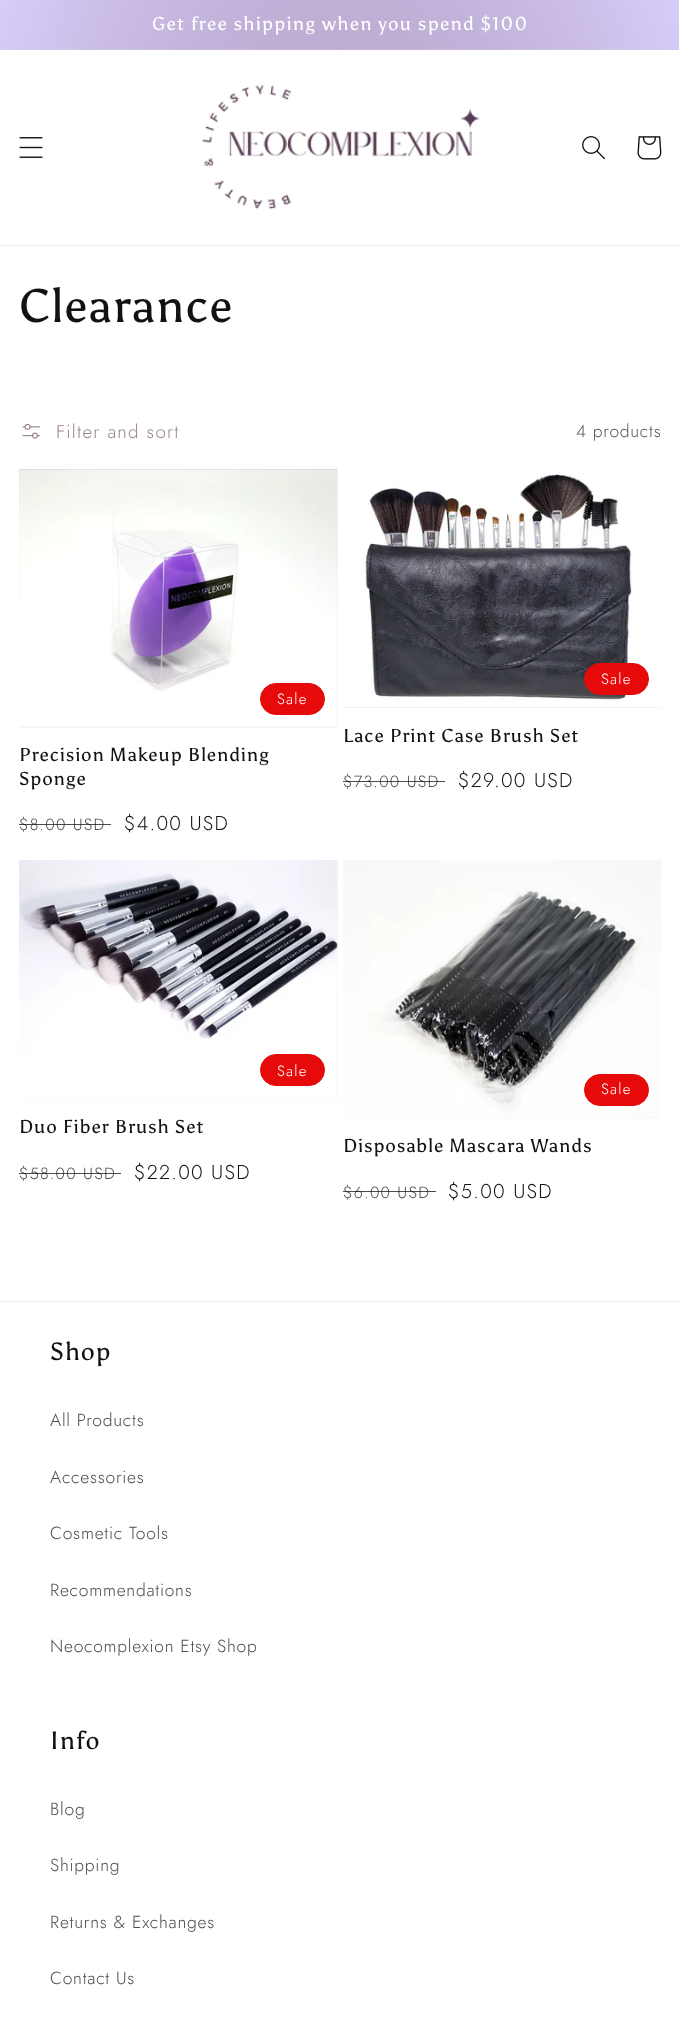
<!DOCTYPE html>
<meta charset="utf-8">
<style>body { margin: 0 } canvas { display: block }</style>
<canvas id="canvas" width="679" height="2017"></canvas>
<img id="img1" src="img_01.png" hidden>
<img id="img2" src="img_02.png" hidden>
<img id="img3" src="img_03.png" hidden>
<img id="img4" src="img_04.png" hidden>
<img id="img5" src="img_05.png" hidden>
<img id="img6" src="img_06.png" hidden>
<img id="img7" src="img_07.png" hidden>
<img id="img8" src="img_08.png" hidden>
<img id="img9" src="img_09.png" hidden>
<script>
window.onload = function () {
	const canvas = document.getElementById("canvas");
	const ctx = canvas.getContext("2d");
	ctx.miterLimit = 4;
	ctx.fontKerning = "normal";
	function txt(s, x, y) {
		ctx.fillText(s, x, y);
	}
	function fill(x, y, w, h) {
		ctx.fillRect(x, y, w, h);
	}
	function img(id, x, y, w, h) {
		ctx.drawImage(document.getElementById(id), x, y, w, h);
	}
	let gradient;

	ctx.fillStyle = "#FFFFFF";
	fill(0, 0, 679, 2017);
	gradient = ctx.createRadialGradient(340, 340.1, 0, 340, 340.1, 481);
	gradient.addColorStop(0, "#886D82");
	gradient.addColorStop(1, "#D7CCFA");
	gradient.addColorStop(1, "#5C3B55");
	ctx.fillStyle = gradient;
	ctx.beginPath();
	ctx.rect(0, 0, 679, 49);
	ctx.save();
	ctx.clip();
	ctx.scale(1, 1427 / 481);
	ctx.fillRect(0, 0, 679, 680);
	ctx.restore();
	gradient = ctx.createRadialGradient(340, 340.1, 0, 340, 340.1, 481);
	gradient.addColorStop(0, "#92798C");
	gradient.addColorStop(1, "#DAD0FA");
	gradient.addColorStop(1, "#694B63");
	ctx.fillStyle = gradient;
	ctx.beginPath();
	ctx.rect(0, 49, 679, 1);
	ctx.save();
	ctx.clip();
	ctx.scale(1, 1427 / 481);
	ctx.fillRect(0, 0, 679, 680);
	ctx.restore();
	ctx.fillStyle = "#ECECEC";
	fill(0, 245, 679, 1);
	img("img1", 19, 137, 24, 21);
	img("img2", 202, 84, 279, 126);
	img("img3", 582, 136, 23, 24);
	img("img4", 637, 136, 25, 24);
	img("img5", 22, 423, 18, 16);
	ctx.fillStyle = "#F4F4F6";
	fill(19, 469, 319, 259);
	img("img6", 19, 469, 319, 258);
	ctx.fillStyle = "#E60B0A";
	ctx.beginPath();
	ctx.roundRect(260.5, 683.5, 64, 31, 15.5);
	ctx.fill();
	ctx.strokeStyle = "#E60B0A";
	ctx.stroke();
	ctx.fillStyle = "#F4F4F6";
	fill(343, 707, 318, 1);
	img("img7", 343, 469, 318, 238);
	ctx.fillStyle = "#E60B0A";
	ctx.beginPath();
	ctx.roundRect(584.5, 663.5, 64, 31, 15.5);
	ctx.fill();
	ctx.stroke();
	ctx.fillStyle = "#F4F4F6";
	fill(19, 860, 319, 239);
	img("img8", 19, 860, 319, 239);
	ctx.fillStyle = "#E60B0A";
	ctx.beginPath();
	ctx.roundRect(260.5, 1054.5, 64, 31, 15.5);
	ctx.fill();
	ctx.stroke();
	ctx.fillStyle = "#F4F4F6";
	fill(343, 1118, 318, 1);
	img("img9", 343, 860, 318, 259);
	ctx.fillStyle = "#E60B0A";
	ctx.beginPath();
	ctx.roundRect(584.5, 1074.5, 64, 31, 15.5);
	ctx.fill();
	ctx.stroke();
	ctx.fillStyle = "#ECECEC";
	fill(0, 1301, 679, 1);
	ctx.letterSpacing = "1.25px";
	ctx.font = "18.75px Asul";
	ctx.fillStyle = "#FFFFFF";
	txt("Get free shipping when you spend $100", 152, 30);
	ctx.letterSpacing = "0.9px";
	ctx.font = "47px Asul";
	ctx.fillStyle = "#121212";
	txt("Clearance", 19, 322);
	ctx.letterSpacing = "1.25px";
	ctx.font = "300 18.75px Jost";
	ctx.fillStyle = "#9A8395";
	txt("Filter and sort", 56, 438);
	ctx.letterSpacing = "0.75px";
	ctx.font = "300 17.5px Jost";
	ctx.fillStyle = "#595959";
	txt("4 products", 576, 437);
	ctx.letterSpacing = "1.25px";
	ctx.font = "300 15px Jost";
	ctx.fillStyle = "#FFFFFF";
	txt("Sale", 277, 704);
	ctx.letterSpacing = "0.9px";
	ctx.font = "18.75px Asul";
	ctx.fillStyle = "#121212";
	txt("Precision Makeup Blending", 19, 761);
	txt("Sponge", 19, 785);
	ctx.letterSpacing = "1.25px";
	ctx.font = "300 16.25px Jost";
	ctx.fillStyle = "#4D4D4D";
	txt("$8.00 USD", 19, 830);
	ctx.fillStyle = "rgba(18, 18, 18, 0.75)";
	fill(19, 824, 92, 1);
	ctx.font = "300 20px Jost";
	ctx.fillStyle = "#121212";
	txt("$4.00 USD", 124, 830);
	ctx.font = "300 15px Jost";
	ctx.fillStyle = "#FFFFFF";
	txt("Sale", 601, 684);
	ctx.letterSpacing = "0.9px";
	ctx.font = "18.75px Asul";
	ctx.fillStyle = "#121212";
	txt("Lace Print Case Brush Set", 343, 742);
	ctx.letterSpacing = "1.25px";
	ctx.font = "300 16.25px Jost";
	ctx.fillStyle = "#4D4D4D";
	txt("$73.00 USD", 343, 787);
	ctx.fillStyle = "rgba(18, 18, 18, 0.75)";
	fill(343, 781, 102, 1);
	ctx.font = "300 20px Jost";
	ctx.fillStyle = "#121212";
	txt("$29.00 USD", 458, 787);
	ctx.font = "300 15px Jost";
	ctx.fillStyle = "#FFFFFF";
	txt("Sale", 277, 1076);
	ctx.letterSpacing = "0.9px";
	ctx.font = "18.75px Asul";
	ctx.fillStyle = "#121212";
	txt("Duo Fiber Brush Set", 19, 1133);
	ctx.letterSpacing = "1.25px";
	ctx.font = "300 16.25px Jost";
	ctx.fillStyle = "#4D4D4D";
	txt("$58.00 USD", 19, 1179);
	ctx.fillStyle = "rgba(18, 18, 18, 0.75)";
	fill(19, 1173, 102, 1);
	ctx.font = "300 20px Jost";
	ctx.fillStyle = "#121212";
	txt("$22.00 USD", 134, 1179);
	ctx.font = "300 15px Jost";
	ctx.fillStyle = "#FFFFFF";
	txt("Sale", 601, 1094);
	ctx.letterSpacing = "0.9px";
	ctx.font = "18.75px Asul";
	ctx.fillStyle = "#121212";
	txt("Disposable Mascara Wands", 343, 1152);
	ctx.letterSpacing = "1.25px";
	ctx.font = "300 16.25px Jost";
	ctx.fillStyle = "#4D4D4D";
	txt("$6.00 USD", 343, 1198);
	ctx.fillStyle = "rgba(18, 18, 18, 0.75)";
	fill(343, 1191, 93, 1);
	ctx.font = "300 20px Jost";
	ctx.fillStyle = "#121212";
	txt("$5.00 USD", 448, 1198);
	ctx.letterSpacing = "0.9px";
	ctx.font = "25px Asul";
	txt("Shop", 50, 1360);
	ctx.letterSpacing = "0.75px";
	ctx.font = "300 17.5px Jost";
	ctx.fillStyle = "#4D4D4D";
	txt("All Products", 50, 1426);
	txt("Accessories", 50, 1483);
	txt("Cosmetic Tools", 50, 1539);
	txt("Recommendations", 50, 1596);
	txt("Neocomplexion Etsy Shop", 50, 1652);
	ctx.letterSpacing = "0.9px";
	ctx.font = "25px Asul";
	ctx.fillStyle = "#121212";
	txt("Info", 50, 1749);
	ctx.letterSpacing = "0.75px";
	ctx.font = "300 17.5px Jost";
	ctx.fillStyle = "#4D4D4D";
	txt("Blog", 50, 1815);
	txt("Shipping", 50, 1871);
	txt("Returns & Exchanges", 50, 1928);
	txt("Contact Us", 50, 1984);
};
</script>
